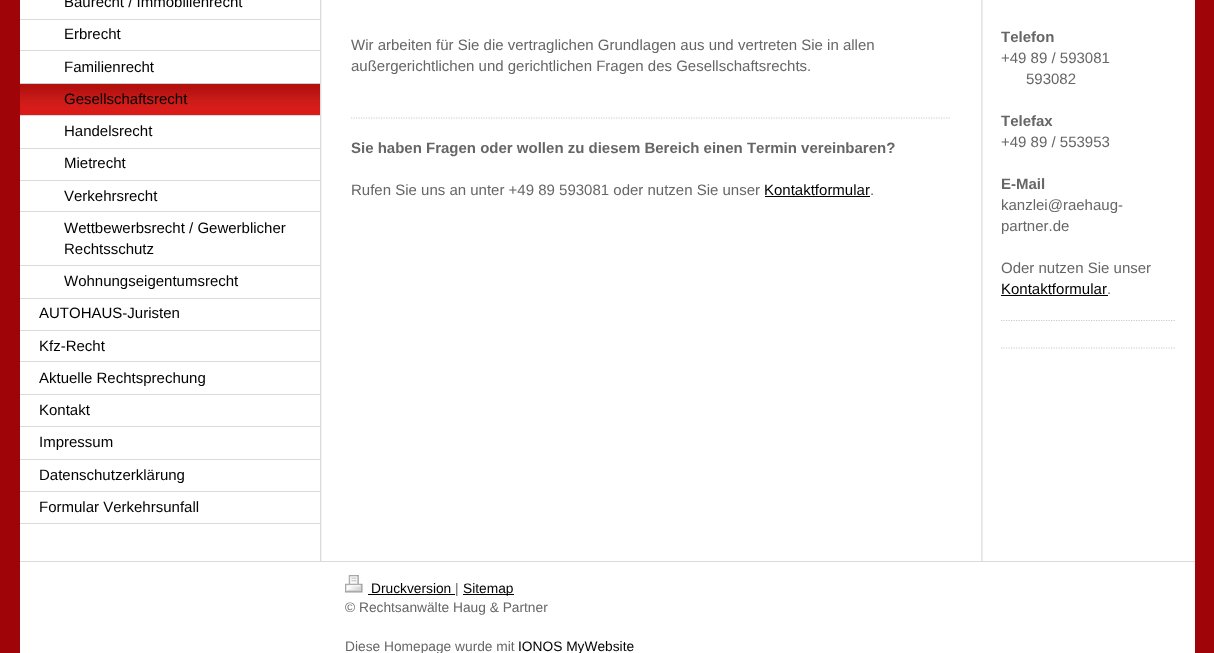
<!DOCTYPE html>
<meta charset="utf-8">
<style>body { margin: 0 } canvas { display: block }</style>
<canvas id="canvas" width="1214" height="653"></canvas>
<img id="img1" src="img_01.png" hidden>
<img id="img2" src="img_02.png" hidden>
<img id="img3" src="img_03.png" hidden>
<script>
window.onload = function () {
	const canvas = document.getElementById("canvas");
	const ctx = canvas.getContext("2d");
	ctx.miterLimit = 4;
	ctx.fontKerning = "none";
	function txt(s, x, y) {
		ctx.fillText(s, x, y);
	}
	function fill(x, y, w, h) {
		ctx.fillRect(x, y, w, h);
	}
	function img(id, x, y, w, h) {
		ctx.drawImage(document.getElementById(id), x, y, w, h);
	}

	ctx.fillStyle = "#9F0408";
	fill(0, 0, 1214, 653);
	ctx.fillStyle = "#FFFFFF";
	fill(20, 0, 1175, 561);
	img("img1", 320, 0, 663, 561);
	ctx.fillStyle = "#DADADA";
	fill(20, 19, 300, 1);
	fill(20, 50, 300, 1);
	fill(20, 83, 300, 1);
	ctx.fillStyle = "#DE1411";
	fill(20, 84, 300, 31);
	img("img2", 20, 83, 300, 32);
	ctx.fillStyle = "#DADADA";
	fill(20, 115, 300, 1);
	fill(20, 148, 300, 1);
	fill(20, 180, 300, 1);
	fill(20, 211, 300, 1);
	fill(20, 265, 300, 1);
	fill(20, 298, 300, 1);
	fill(20, 330, 300, 1);
	fill(20, 361, 300, 1);
	fill(20, 394, 300, 1);
	fill(20, 426, 300, 1);
	fill(20, 459, 300, 1);
	fill(20, 491, 300, 1);
	fill(20, 523, 300, 1);
	ctx.beginPath();
	ctx.moveTo(351, 118);
	ctx.lineTo(951, 118);
	ctx.strokeStyle = "#CCCCCC";
	ctx.lineWidth = 1.2;
	ctx.setLineDash([1.25, 1.25]);
	ctx.stroke();
	ctx.fillStyle = "#000000";
	fill(765, 196, 105, 1);
	fill(1001, 295, 107, 1);
	ctx.beginPath();
	ctx.moveTo(1001, 320.5);
	ctx.lineTo(1176, 320.5);
	ctx.stroke();
	ctx.beginPath();
	ctx.moveTo(1001, 348);
	ctx.lineTo(1176, 348);
	ctx.stroke();
	ctx.fillStyle = "#FFFFFF";
	fill(20, 562, 1175, 91);
	ctx.fillStyle = "#DADADA";
	fill(20, 561, 1175, 1);
	img("img3", 345, 575, 18, 18);
	ctx.fillStyle = "#000000";
	fill(368, 594, 87, 1);
	fill(463, 594, 51, 1);
	ctx.font = "15px Liberation Sans";
	txt("Baurecht / Immobilienrecht", 64, 7);
	txt("Erbrecht", 64, 39);
	txt("Familienrecht", 64, 72);
	txt("Gesellschaftsrecht", 64, 104);
	txt("Handelsrecht", 64, 136);
	txt("Mietrecht", 64, 168);
	txt("Verkehrsrecht", 64, 201);
	txt("Wettbewerbsrecht / Gewerblicher", 64, 233);
	txt("Rechtsschutz", 64, 254);
	txt("Wohnungseigentumsrecht", 64, 286);
	txt("AUTOHAUS-Juristen", 39, 318);
	txt("Kfz-Recht", 39, 351);
	txt("Aktuelle Rechtsprechung", 39, 383);
	txt("Kontakt", 39, 415);
	txt("Impressum", 39, 447);
	txt("Datenschutzerklärung", 39, 480);
	txt("Formular Verkehrsunfall", 39, 512);
	ctx.fillStyle = "#666666";
	txt("Wir arbeiten für Sie die vertraglichen Grundlagen aus und vertreten Sie in allen", 351, 50);
	txt("außergerichtlichen und gerichtlichen Fragen des Gesellschaftsrechts.", 351, 71);
	ctx.font = "bold 15px Liberation Sans";
	txt("Sie haben Fragen oder wollen zu diesem Bereich einen Termin vereinbaren?", 351, 153);
	ctx.font = "15px Liberation Sans";
	txt("Rufen Sie uns an unter +49 89 593081 oder nutzen Sie unser", 351, 195);
	ctx.fillStyle = "#000000";
	txt("Kontaktformular", 764, 195);
	ctx.fillStyle = "#666666";
	txt(".", 870, 195);
	ctx.font = "bold 15px Liberation Sans";
	txt("Telefon", 1001, 42);
	ctx.font = "15px Liberation Sans";
	txt("+49 89 / 593081", 1001, 63);
	txt("593082", 1026, 84);
	ctx.font = "bold 15px Liberation Sans";
	txt("Telefax", 1001, 126);
	ctx.font = "15px Liberation Sans";
	txt("+49 89 / 553953", 1001, 147);
	ctx.font = "bold 15px Liberation Sans";
	txt("E-Mail", 1001, 189);
	ctx.font = "15px Liberation Sans";
	txt("kanzlei@raehaug-", 1001, 210);
	txt("partner.de", 1001, 231);
	txt("Oder nutzen Sie unser", 1001, 273);
	ctx.fillStyle = "#000000";
	txt("Kontaktformular", 1001, 294);
	ctx.fillStyle = "#666666";
	txt(".", 1107, 294);
	ctx.font = "13.75px Liberation Sans";
	ctx.fillStyle = "#000000";
	txt("Druckversion", 371, 593);
	ctx.fillStyle = "#666666";
	txt("|", 455, 593);
	ctx.fillStyle = "#000000";
	txt("Sitemap", 463, 593);
	ctx.fillStyle = "#666666";
	txt("© Rechtsanwälte Haug & Partner", 345, 612);
	txt("Diese Homepage wurde mit", 345, 651);
	ctx.fillStyle = "#000000";
	txt("IONOS MyWebsite", 518, 651);
};
</script>
